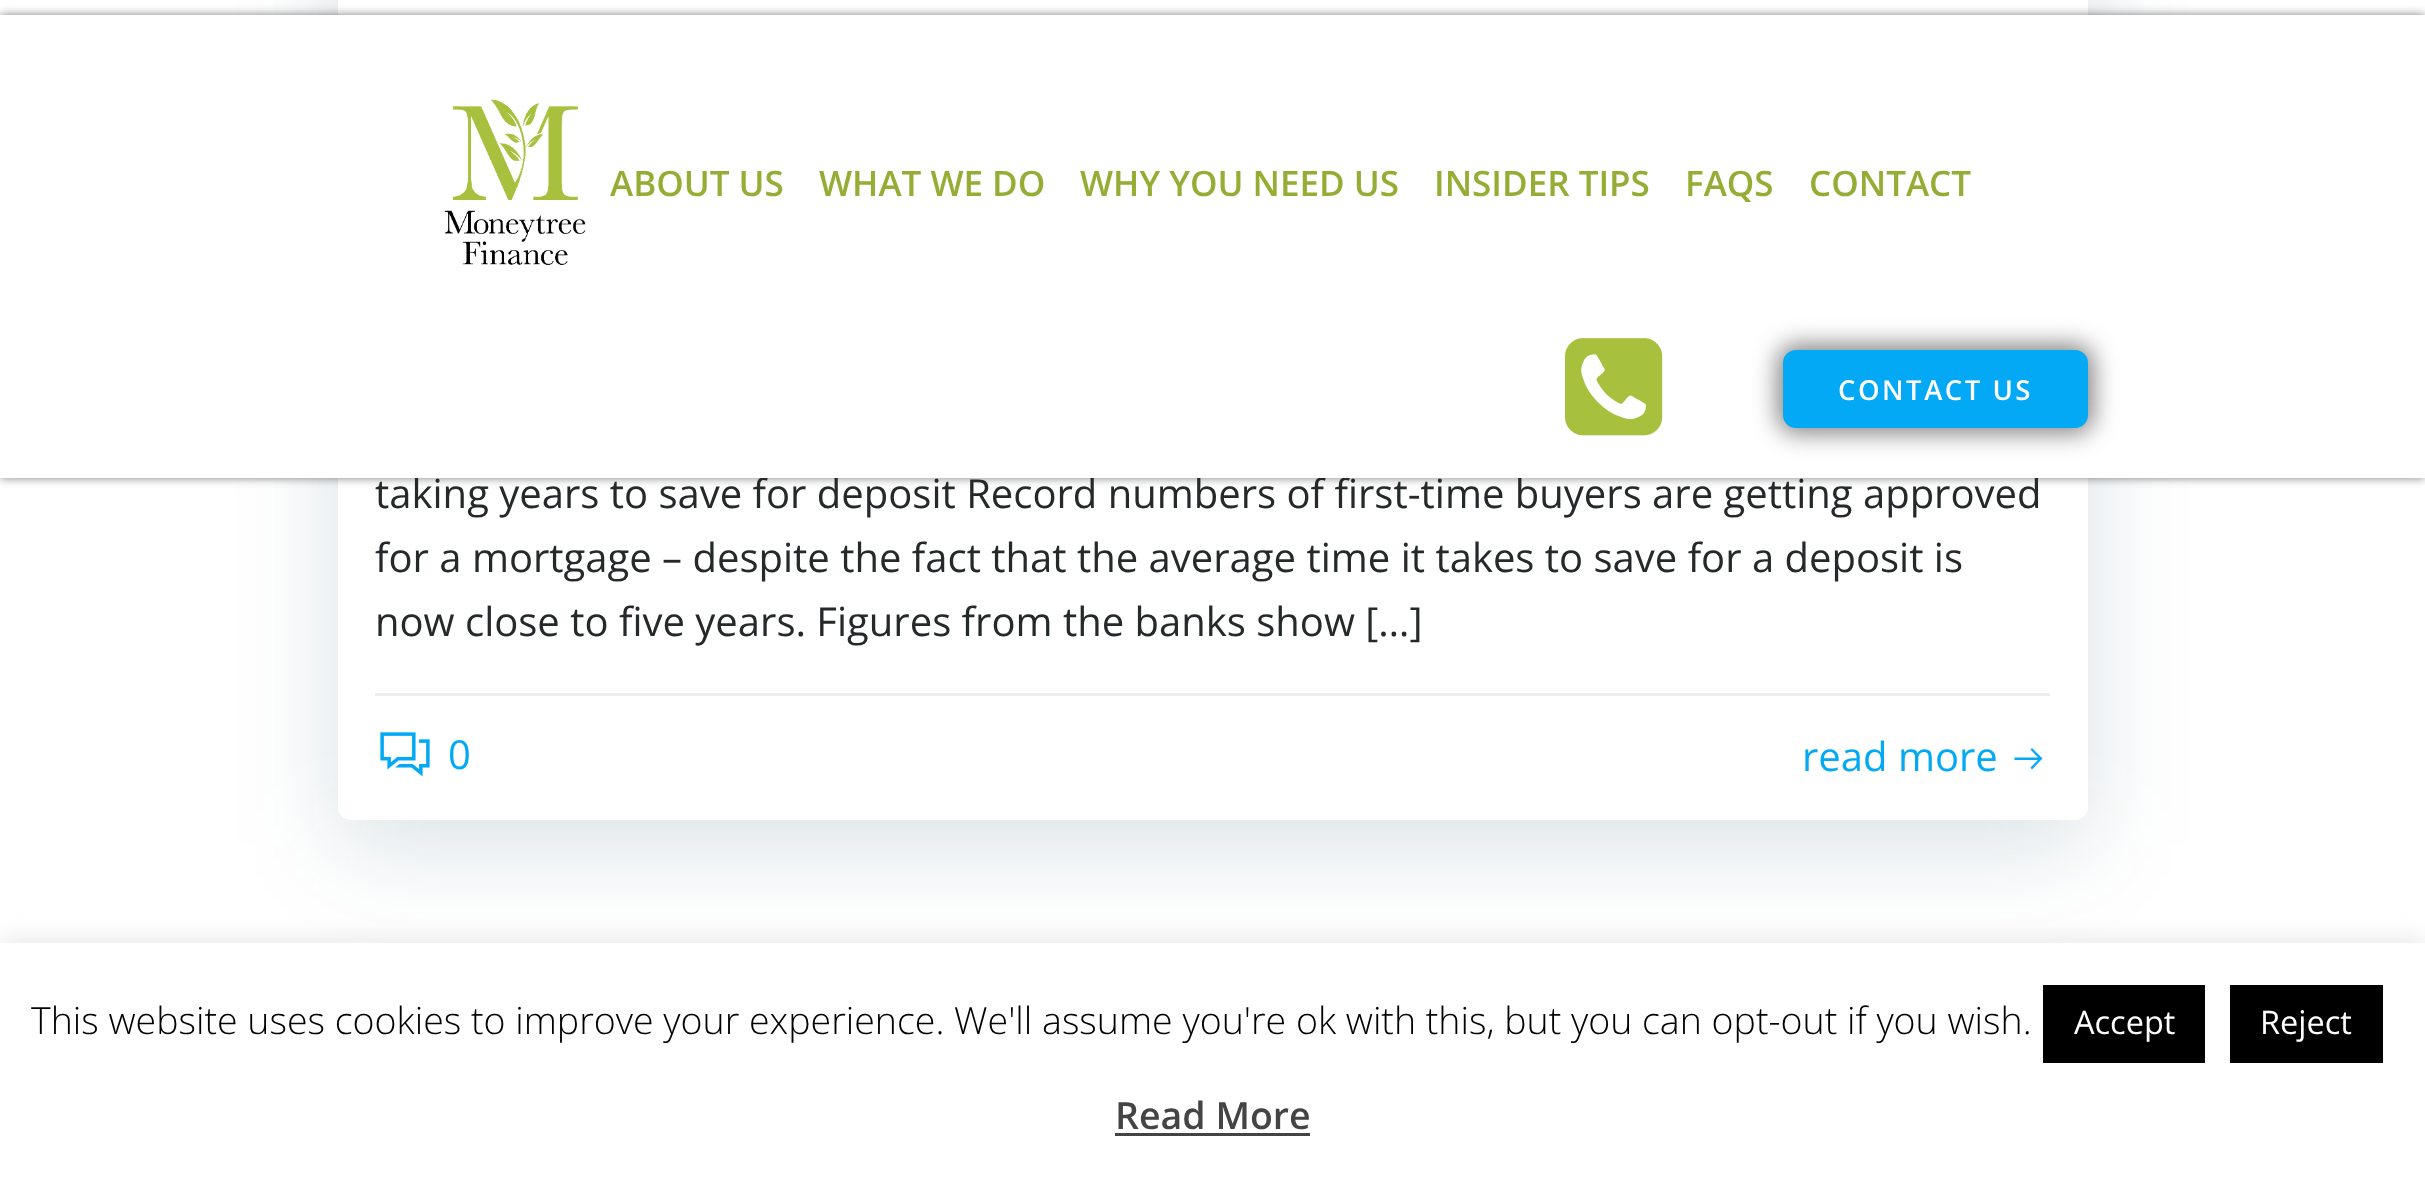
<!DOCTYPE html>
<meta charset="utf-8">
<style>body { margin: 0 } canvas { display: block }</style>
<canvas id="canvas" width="2425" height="1183"></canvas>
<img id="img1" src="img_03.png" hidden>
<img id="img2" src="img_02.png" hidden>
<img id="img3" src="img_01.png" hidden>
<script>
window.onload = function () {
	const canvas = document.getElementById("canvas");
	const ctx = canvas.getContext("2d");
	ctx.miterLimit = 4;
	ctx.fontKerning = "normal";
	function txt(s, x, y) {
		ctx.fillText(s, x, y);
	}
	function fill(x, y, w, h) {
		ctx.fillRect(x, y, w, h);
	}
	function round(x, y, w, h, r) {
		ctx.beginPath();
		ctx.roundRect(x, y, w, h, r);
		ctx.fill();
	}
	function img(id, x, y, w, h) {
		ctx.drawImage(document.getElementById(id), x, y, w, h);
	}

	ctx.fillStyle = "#FFFFFF";
	fill(0, 0, 2425, 1183);
	ctx.fillStyle = "rgba(1, 51, 74, 0.15)";
	ctx.filter = "blur(50px)";
	ctx.beginPath();
	ctx.roundRect(338, -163, 1750, 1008, 13);
	ctx.fill();
	ctx.filter = "none";
	ctx.fillStyle = "#FFFFFF";
	round(338, -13, 1750, 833, 13);
	ctx.fillStyle = "rgba(0, 0, 0, 0.5)";
	ctx.filter = "blur(5px)";
	ctx.beginPath();
	ctx.rect(0, 15, 2425, 463);
	ctx.fill();
	ctx.filter = "none";
	ctx.fillStyle = "#EEEEEE";
	fill(375, 693, 1675, 3);
	img("img1", 380, 732, 50, 45);
	ctx.fillStyle = "#03A9F4";
	ctx.beginPath();
	ctx.moveTo(2032, 748);
	ctx.lineTo(2042.5, 758.5);
	ctx.lineTo(2032, 769.5);
	ctx.lineTo(2030.5, 767.5);
	ctx.lineTo(2038, 760);
	ctx.lineTo(2014.5, 760);
	ctx.lineTo(2014.5, 757.5);
	ctx.lineTo(2038, 757.5);
	ctx.lineTo(2030.5, 749.5);
	ctx.closePath();
	ctx.fill();
	ctx.fillStyle = "rgba(172, 171, 171, 0.3)";
	ctx.filter = "blur(12.5px)";
	ctx.beginPath();
	ctx.rect(0, 940, 2425, 243);
	ctx.fill();
	ctx.filter = "none";
	ctx.fillStyle = "#FFFFFF";
	fill(0, 943, 2425, 240);
	ctx.fillStyle = "#000000";
	fill(2043, 985, 162, 78);
	fill(2230, 985, 153, 78);
	ctx.fillStyle = "#444444";
	fill(1115, 1133, 195, 3);
	ctx.font = "40px Open Sans";
	ctx.fillStyle = "#25292A";
	txt("taking years to save for deposit Record numbers of first-time buyers are getting approved", 375, 508);
	ctx.fillStyle = "#FFFFFF";
	fill(0, 15, 2425, 463);
	ctx.fillStyle = "rgba(0, 0, 0, 0.5)";
	ctx.filter = "blur(12.5px)";
	ctx.beginPath();
	ctx.roundRect(1778, 345, 315, 88, 18);
	ctx.fill();
	ctx.filter = "none";
	ctx.fillStyle = "#03A9F4";
	ctx.beginPath();
	ctx.roundRect(1785.5, 352.5, 300, 73, 10.5);
	ctx.fill();
	ctx.strokeStyle = "#03A9F4";
	ctx.lineWidth = 5;
	ctx.stroke();
	ctx.letterSpacing = "2.5px";
	ctx.font = "600 27.5px Open Sans";
	ctx.fillStyle = "#FFFFFF";
	txt("CONTACT US", 1838, 400);
	img("img2", 1565, 338, 98, 98);
	ctx.letterSpacing = "0px";
	ctx.font = "600 35px Open Sans";
	ctx.fillStyle = "#95AD34";
	txt("CONTACT", 1809, 196);
	txt("FAQS", 1685, 196);
	txt("INSIDER TIPS", 1434, 196);
	txt("WHY YOU NEED US", 1080, 196);
	txt("WHAT WE DO", 819, 196);
	txt("ABOUT US", 610, 196);
	img("img3", 444, 99, 142, 166);
	ctx.font = "40px Open Sans";
	ctx.fillStyle = "#25292A";
	txt("for a mortgage – despite the fact that the average time it takes to save for a deposit is", 375, 572);
	txt("now close to five years. Figures from the banks show […]", 375, 636);
	ctx.fillStyle = "#03A9F4";
	txt("0", 448, 769);
	txt("read more", 1802, 771);
	ctx.font = "300 37.5px Open Sans";
	ctx.fillStyle = "#000000";
	txt("This website uses cookies to improve your experience. We'll assume you're ok with this, but you can opt-out if you wish.", 31, 1034);
	ctx.font = "32.5px Open Sans";
	ctx.fillStyle = "#FFFFFF";
	txt("Accept", 2074, 1034);
	txt("Reject", 2260, 1034);
	ctx.font = "600 37.5px Open Sans";
	ctx.fillStyle = "#444444";
	txt("Read More", 1115, 1129);
};
</script>
